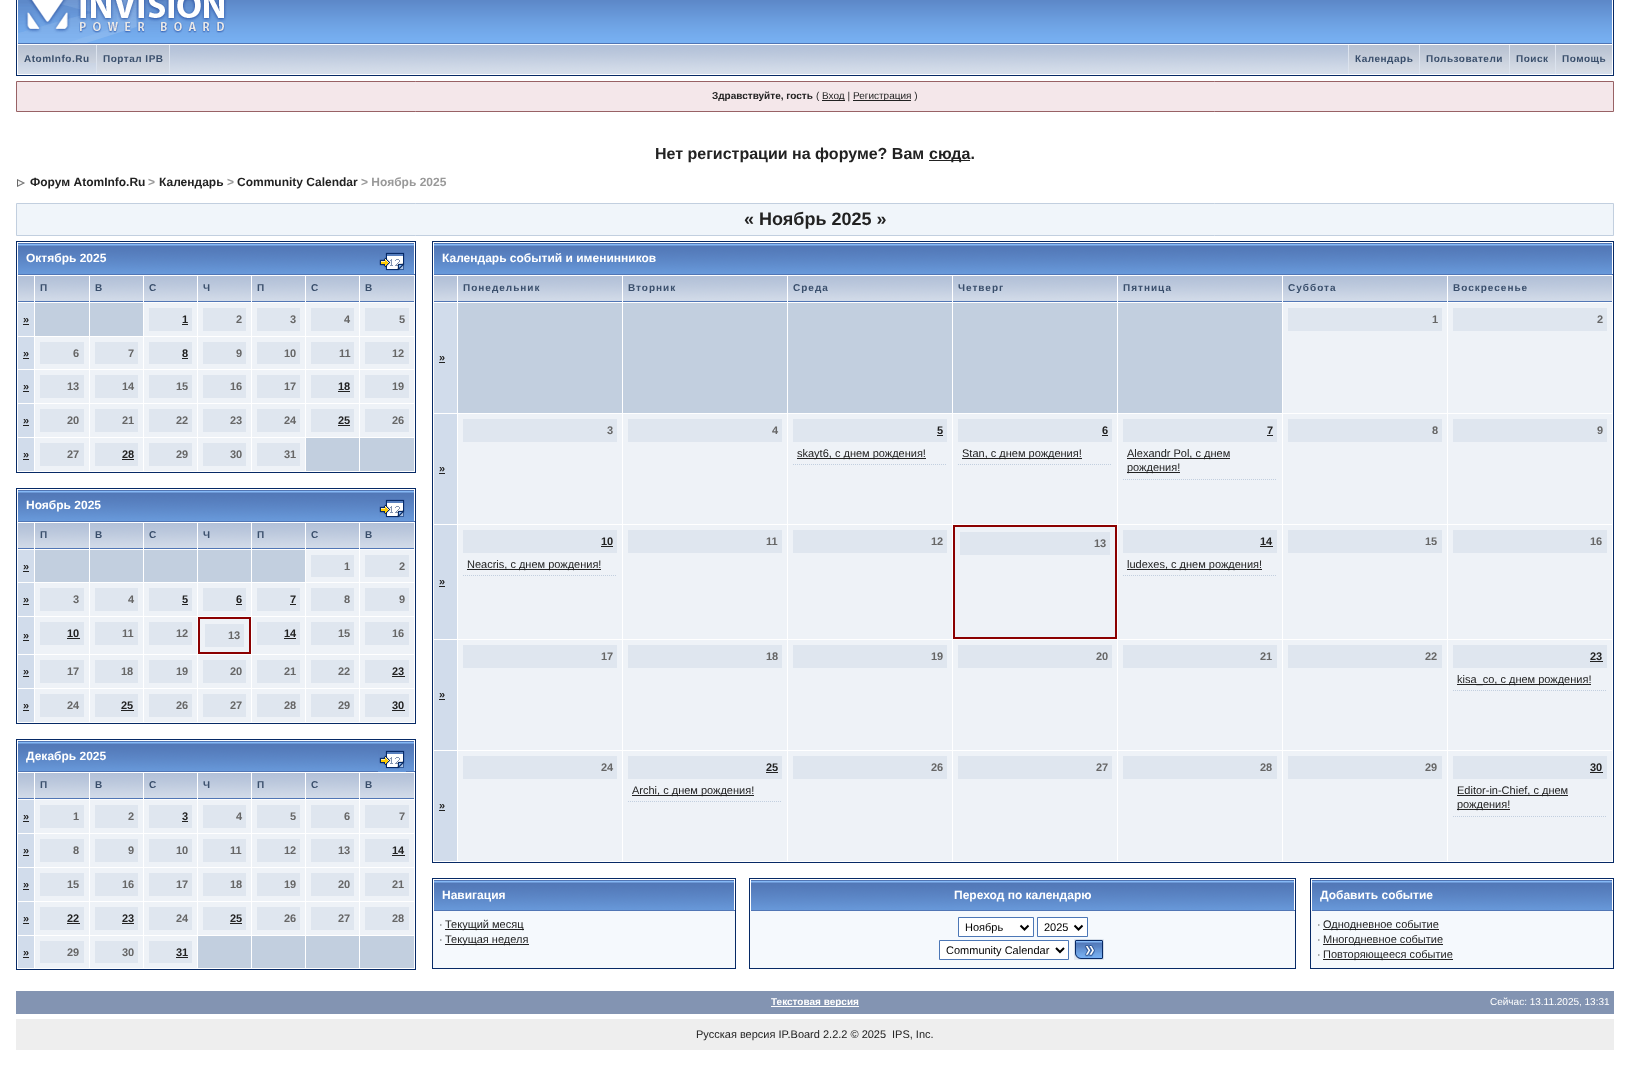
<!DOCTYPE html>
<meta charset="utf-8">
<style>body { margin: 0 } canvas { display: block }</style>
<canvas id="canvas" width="1630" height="1087"></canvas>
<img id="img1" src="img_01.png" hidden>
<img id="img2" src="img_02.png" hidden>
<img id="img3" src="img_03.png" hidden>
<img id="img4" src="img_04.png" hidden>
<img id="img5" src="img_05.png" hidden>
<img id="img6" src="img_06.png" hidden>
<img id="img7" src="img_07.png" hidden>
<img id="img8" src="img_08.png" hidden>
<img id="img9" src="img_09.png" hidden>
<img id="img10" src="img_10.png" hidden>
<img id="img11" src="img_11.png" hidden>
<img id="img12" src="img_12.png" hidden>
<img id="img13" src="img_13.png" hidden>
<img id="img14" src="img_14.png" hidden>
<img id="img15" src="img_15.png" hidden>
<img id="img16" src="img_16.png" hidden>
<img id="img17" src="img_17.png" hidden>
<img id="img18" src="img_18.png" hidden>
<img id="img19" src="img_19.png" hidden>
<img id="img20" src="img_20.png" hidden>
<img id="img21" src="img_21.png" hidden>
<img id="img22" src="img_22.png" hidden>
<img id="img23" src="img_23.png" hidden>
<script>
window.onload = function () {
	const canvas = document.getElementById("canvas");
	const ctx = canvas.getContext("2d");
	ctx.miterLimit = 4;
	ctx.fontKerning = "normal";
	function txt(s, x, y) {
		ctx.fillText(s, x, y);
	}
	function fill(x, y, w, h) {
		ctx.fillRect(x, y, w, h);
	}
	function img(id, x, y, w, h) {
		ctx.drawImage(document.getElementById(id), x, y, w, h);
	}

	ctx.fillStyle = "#FFFFFF";
	fill(0, 0, 1630, 1087);
	ctx.strokeStyle = "#072A66";
	ctx.strokeRect(16.5, -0.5, 1597, 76);
	img("img1", 18, 0, 1594, 44);
	img("img2", 18, 0, 209, 43);
	img("img3", 18, 45, 1594, 29);
	img("img4", 18, 45, 78, 18);
	ctx.fillStyle = "#DCE3EE";
	fill(96, 45, 1, 29);
	img("img5", 97, 45, 72, 27);
	fill(169, 45, 1, 29);
	img("img6", 1349, 45, 70, 26);
	fill(1348, 45, 1, 29);
	img("img7", 1420, 45, 89, 27);
	fill(1419, 45, 1, 29);
	img("img8", 1510, 45, 45, 27);
	fill(1509, 45, 1, 29);
	img("img9", 1556, 45, 56, 27);
	fill(1555, 45, 1, 29);
	ctx.fillStyle = "#F4E7EA";
	ctx.beginPath();
	ctx.rect(16.5, 81.5, 1597, 30);
	ctx.fill();
	ctx.strokeStyle = "#986265";
	ctx.stroke();
	ctx.fillStyle = "#222222";
	fill(822, 100, 23, 1);
	fill(853, 100, 58, 1);
	fill(929, 160, 41, 1);
	img("img10", 17, 179, 8, 8);
	ctx.fillStyle = "#F0F5FA";
	ctx.beginPath();
	ctx.rect(16.5, 203.5, 1597, 32);
	ctx.fill();
	ctx.strokeStyle = "#C2CFDF";
	ctx.stroke();
	ctx.strokeStyle = "#072A66";
	ctx.strokeRect(16.5, 241.5, 399, 231);
	img("img11", 18, 243, 396, 31);
	ctx.fillStyle = "#5176B5";
	fill(17, 274, 398, 1);
	ctx.fillStyle = "#FFFFFF";
	fill(17, 274, 1, 1);
	img("img12", 379, 252, 26, 19);
	img("img13", 18, 276, 16, 25);
	ctx.fillStyle = "#5176B5";
	fill(18, 301, 16, 1);
	img("img14", 35, 276, 54, 25);
	fill(35, 301, 54, 1);
	img("img15", 90, 276, 53, 25);
	fill(90, 301, 53, 1);
	img("img15", 144, 276, 53, 25);
	fill(144, 301, 53, 1);
	img("img15", 198, 276, 53, 25);
	fill(198, 301, 53, 1);
	img("img15", 252, 276, 53, 25);
	fill(252, 301, 53, 1);
	img("img15", 306, 276, 53, 25);
	fill(306, 301, 53, 1);
	img("img14", 360, 276, 54, 25);
	fill(360, 301, 54, 1);
	ctx.fillStyle = "#D1DCEB";
	fill(18, 303, 16, 33);
	ctx.fillStyle = "#222222";
	fill(23, 324, 6, 1);
	ctx.fillStyle = "#C2CFDF";
	fill(35, 303, 54, 33);
	fill(90, 303, 53, 33);
	ctx.fillStyle = "#EEF2F7";
	fill(144, 303, 53, 33);
	ctx.fillStyle = "#DFE6EF";
	fill(149, 308, 43, 23);
	ctx.fillStyle = "#222222";
	fill(182, 324, 6, 1);
	ctx.fillStyle = "#EEF2F7";
	fill(198, 303, 53, 33);
	ctx.fillStyle = "#DFE6EF";
	fill(203, 308, 43, 23);
	ctx.fillStyle = "#EEF2F7";
	fill(252, 303, 53, 33);
	ctx.fillStyle = "#DFE6EF";
	fill(257, 308, 43, 23);
	ctx.fillStyle = "#EEF2F7";
	fill(306, 303, 53, 33);
	ctx.fillStyle = "#DFE6EF";
	fill(311, 308, 43, 23);
	ctx.fillStyle = "#EEF2F7";
	fill(360, 303, 54, 33);
	ctx.fillStyle = "#DFE6EF";
	fill(365, 308, 44, 23);
	ctx.fillStyle = "#D1DCEB";
	fill(18, 337, 16, 32);
	ctx.fillStyle = "#222222";
	fill(23, 358, 6, 1);
	ctx.fillStyle = "#EEF2F7";
	fill(35, 337, 54, 32);
	ctx.fillStyle = "#DFE6EF";
	fill(40, 342, 44, 22);
	ctx.fillStyle = "#EEF2F7";
	fill(90, 337, 53, 32);
	ctx.fillStyle = "#DFE6EF";
	fill(95, 342, 43, 22);
	ctx.fillStyle = "#EEF2F7";
	fill(144, 337, 53, 32);
	ctx.fillStyle = "#DFE6EF";
	fill(149, 342, 43, 22);
	ctx.fillStyle = "#222222";
	fill(182, 358, 6, 1);
	ctx.fillStyle = "#EEF2F7";
	fill(198, 337, 53, 32);
	ctx.fillStyle = "#DFE6EF";
	fill(203, 342, 43, 22);
	ctx.fillStyle = "#EEF2F7";
	fill(252, 337, 53, 32);
	ctx.fillStyle = "#DFE6EF";
	fill(257, 342, 43, 22);
	ctx.fillStyle = "#EEF2F7";
	fill(306, 337, 53, 32);
	ctx.fillStyle = "#DFE6EF";
	fill(311, 342, 43, 22);
	ctx.fillStyle = "#EEF2F7";
	fill(360, 337, 54, 32);
	ctx.fillStyle = "#DFE6EF";
	fill(365, 342, 44, 22);
	ctx.fillStyle = "#D1DCEB";
	fill(18, 370, 16, 33);
	ctx.fillStyle = "#222222";
	fill(23, 391, 6, 1);
	ctx.fillStyle = "#EEF2F7";
	fill(35, 370, 54, 33);
	ctx.fillStyle = "#DFE6EF";
	fill(40, 375, 44, 23);
	ctx.fillStyle = "#EEF2F7";
	fill(90, 370, 53, 33);
	ctx.fillStyle = "#DFE6EF";
	fill(95, 375, 43, 23);
	ctx.fillStyle = "#EEF2F7";
	fill(144, 370, 53, 33);
	ctx.fillStyle = "#DFE6EF";
	fill(149, 375, 43, 23);
	ctx.fillStyle = "#EEF2F7";
	fill(198, 370, 53, 33);
	ctx.fillStyle = "#DFE6EF";
	fill(203, 375, 43, 23);
	ctx.fillStyle = "#EEF2F7";
	fill(252, 370, 53, 33);
	ctx.fillStyle = "#DFE6EF";
	fill(257, 375, 43, 23);
	ctx.fillStyle = "#EEF2F7";
	fill(306, 370, 53, 33);
	ctx.fillStyle = "#DFE6EF";
	fill(311, 375, 43, 23);
	ctx.fillStyle = "#222222";
	fill(338, 391, 12, 1);
	ctx.fillStyle = "#EEF2F7";
	fill(360, 370, 54, 33);
	ctx.fillStyle = "#DFE6EF";
	fill(365, 375, 44, 23);
	ctx.fillStyle = "#D1DCEB";
	fill(18, 404, 16, 33);
	ctx.fillStyle = "#222222";
	fill(23, 425, 6, 1);
	ctx.fillStyle = "#EEF2F7";
	fill(35, 404, 54, 33);
	ctx.fillStyle = "#DFE6EF";
	fill(40, 409, 44, 23);
	ctx.fillStyle = "#EEF2F7";
	fill(90, 404, 53, 33);
	ctx.fillStyle = "#DFE6EF";
	fill(95, 409, 43, 23);
	ctx.fillStyle = "#EEF2F7";
	fill(144, 404, 53, 33);
	ctx.fillStyle = "#DFE6EF";
	fill(149, 409, 43, 23);
	ctx.fillStyle = "#EEF2F7";
	fill(198, 404, 53, 33);
	ctx.fillStyle = "#DFE6EF";
	fill(203, 409, 43, 23);
	ctx.fillStyle = "#EEF2F7";
	fill(252, 404, 53, 33);
	ctx.fillStyle = "#DFE6EF";
	fill(257, 409, 43, 23);
	ctx.fillStyle = "#EEF2F7";
	fill(306, 404, 53, 33);
	ctx.fillStyle = "#DFE6EF";
	fill(311, 409, 43, 23);
	ctx.fillStyle = "#222222";
	fill(338, 425, 12, 1);
	ctx.fillStyle = "#EEF2F7";
	fill(360, 404, 54, 33);
	ctx.fillStyle = "#DFE6EF";
	fill(365, 409, 44, 23);
	ctx.fillStyle = "#D1DCEB";
	fill(18, 438, 16, 33);
	ctx.fillStyle = "#222222";
	fill(23, 459, 6, 1);
	ctx.fillStyle = "#EEF2F7";
	fill(35, 438, 54, 33);
	ctx.fillStyle = "#DFE6EF";
	fill(40, 443, 44, 23);
	ctx.fillStyle = "#EEF2F7";
	fill(90, 438, 53, 33);
	ctx.fillStyle = "#DFE6EF";
	fill(95, 443, 43, 23);
	ctx.fillStyle = "#222222";
	fill(122, 459, 12, 1);
	ctx.fillStyle = "#EEF2F7";
	fill(144, 438, 53, 33);
	ctx.fillStyle = "#DFE6EF";
	fill(149, 443, 43, 23);
	ctx.fillStyle = "#EEF2F7";
	fill(198, 438, 53, 33);
	ctx.fillStyle = "#DFE6EF";
	fill(203, 443, 43, 23);
	ctx.fillStyle = "#EEF2F7";
	fill(252, 438, 53, 33);
	ctx.fillStyle = "#DFE6EF";
	fill(257, 443, 43, 23);
	ctx.fillStyle = "#C2CFDF";
	fill(306, 438, 53, 33);
	fill(360, 438, 54, 33);
	ctx.strokeRect(16.5, 488.5, 399, 235);
	img("img11", 18, 490, 396, 31);
	ctx.fillStyle = "#5176B5";
	fill(17, 521, 398, 1);
	ctx.fillStyle = "#FFFFFF";
	fill(17, 521, 1, 1);
	img("img12", 379, 499, 26, 19);
	img("img13", 18, 523, 16, 25);
	ctx.fillStyle = "#5176B5";
	fill(18, 548, 16, 1);
	img("img14", 35, 523, 54, 25);
	fill(35, 548, 54, 1);
	img("img15", 90, 523, 53, 25);
	fill(90, 548, 53, 1);
	img("img15", 144, 523, 53, 25);
	fill(144, 548, 53, 1);
	img("img15", 198, 523, 53, 25);
	fill(198, 548, 53, 1);
	img("img15", 252, 523, 53, 25);
	fill(252, 548, 53, 1);
	img("img15", 306, 523, 53, 25);
	fill(306, 548, 53, 1);
	img("img14", 360, 523, 54, 25);
	fill(360, 548, 54, 1);
	ctx.fillStyle = "#D1DCEB";
	fill(18, 550, 16, 32);
	ctx.fillStyle = "#222222";
	fill(23, 571, 6, 1);
	ctx.fillStyle = "#C2CFDF";
	fill(35, 550, 54, 32);
	fill(90, 550, 53, 32);
	fill(144, 550, 53, 32);
	fill(198, 550, 53, 32);
	fill(252, 550, 53, 32);
	ctx.fillStyle = "#EEF2F7";
	fill(306, 550, 53, 32);
	ctx.fillStyle = "#DFE6EF";
	fill(311, 555, 43, 22);
	ctx.fillStyle = "#EEF2F7";
	fill(360, 550, 54, 32);
	ctx.fillStyle = "#DFE6EF";
	fill(365, 555, 44, 22);
	ctx.fillStyle = "#D1DCEB";
	fill(18, 583, 16, 33);
	ctx.fillStyle = "#222222";
	fill(23, 604, 6, 1);
	ctx.fillStyle = "#EEF2F7";
	fill(35, 583, 54, 33);
	ctx.fillStyle = "#DFE6EF";
	fill(40, 588, 44, 23);
	ctx.fillStyle = "#EEF2F7";
	fill(90, 583, 53, 33);
	ctx.fillStyle = "#DFE6EF";
	fill(95, 588, 43, 23);
	ctx.fillStyle = "#EEF2F7";
	fill(144, 583, 53, 33);
	ctx.fillStyle = "#DFE6EF";
	fill(149, 588, 43, 23);
	ctx.fillStyle = "#222222";
	fill(182, 604, 6, 1);
	ctx.fillStyle = "#EEF2F7";
	fill(198, 583, 53, 33);
	ctx.fillStyle = "#DFE6EF";
	fill(203, 588, 43, 23);
	ctx.fillStyle = "#222222";
	fill(236, 604, 6, 1);
	ctx.fillStyle = "#EEF2F7";
	fill(252, 583, 53, 33);
	ctx.fillStyle = "#DFE6EF";
	fill(257, 588, 43, 23);
	ctx.fillStyle = "#222222";
	fill(290, 604, 6, 1);
	ctx.fillStyle = "#EEF2F7";
	fill(306, 583, 53, 33);
	ctx.fillStyle = "#DFE6EF";
	fill(311, 588, 43, 23);
	ctx.fillStyle = "#EEF2F7";
	fill(360, 583, 54, 33);
	ctx.fillStyle = "#DFE6EF";
	fill(365, 588, 44, 23);
	ctx.fillStyle = "#D1DCEB";
	fill(18, 617, 16, 37);
	ctx.fillStyle = "#222222";
	fill(23, 640, 6, 1);
	ctx.fillStyle = "#EEF2F7";
	fill(35, 617, 54, 37);
	ctx.fillStyle = "#DFE6EF";
	fill(40, 622, 44, 23);
	ctx.fillStyle = "#222222";
	fill(67, 638, 13, 1);
	ctx.fillStyle = "#EEF2F7";
	fill(90, 617, 53, 37);
	ctx.fillStyle = "#DFE6EF";
	fill(95, 622, 43, 23);
	ctx.fillStyle = "#EEF2F7";
	fill(144, 617, 53, 37);
	ctx.fillStyle = "#DFE6EF";
	fill(149, 622, 43, 23);
	ctx.fillStyle = "#EEF2F7";
	ctx.beginPath();
	ctx.rect(199, 618, 51, 35);
	ctx.fill();
	ctx.strokeStyle = "#8B0000";
	ctx.lineWidth = 2;
	ctx.stroke();
	ctx.fillStyle = "#DFE6EF";
	fill(205, 624, 39, 23);
	ctx.fillStyle = "#EEF2F7";
	fill(252, 617, 53, 37);
	ctx.fillStyle = "#DFE6EF";
	fill(257, 622, 43, 23);
	ctx.fillStyle = "#222222";
	fill(284, 638, 12, 1);
	ctx.fillStyle = "#EEF2F7";
	fill(306, 617, 53, 37);
	ctx.fillStyle = "#DFE6EF";
	fill(311, 622, 43, 23);
	ctx.fillStyle = "#EEF2F7";
	fill(360, 617, 54, 37);
	ctx.fillStyle = "#DFE6EF";
	fill(365, 622, 44, 23);
	ctx.fillStyle = "#D1DCEB";
	fill(18, 655, 16, 33);
	ctx.fillStyle = "#222222";
	fill(23, 676, 6, 1);
	ctx.fillStyle = "#EEF2F7";
	fill(35, 655, 54, 33);
	ctx.fillStyle = "#DFE6EF";
	fill(40, 660, 44, 23);
	ctx.fillStyle = "#EEF2F7";
	fill(90, 655, 53, 33);
	ctx.fillStyle = "#DFE6EF";
	fill(95, 660, 43, 23);
	ctx.fillStyle = "#EEF2F7";
	fill(144, 655, 53, 33);
	ctx.fillStyle = "#DFE6EF";
	fill(149, 660, 43, 23);
	ctx.fillStyle = "#EEF2F7";
	fill(198, 655, 53, 33);
	ctx.fillStyle = "#DFE6EF";
	fill(203, 660, 43, 23);
	ctx.fillStyle = "#EEF2F7";
	fill(252, 655, 53, 33);
	ctx.fillStyle = "#DFE6EF";
	fill(257, 660, 43, 23);
	ctx.fillStyle = "#EEF2F7";
	fill(306, 655, 53, 33);
	ctx.fillStyle = "#DFE6EF";
	fill(311, 660, 43, 23);
	ctx.fillStyle = "#EEF2F7";
	fill(360, 655, 54, 33);
	ctx.fillStyle = "#DFE6EF";
	fill(365, 660, 44, 23);
	ctx.fillStyle = "#222222";
	fill(392, 676, 13, 1);
	ctx.fillStyle = "#D1DCEB";
	fill(18, 689, 16, 33);
	ctx.fillStyle = "#222222";
	fill(23, 710, 6, 1);
	ctx.fillStyle = "#EEF2F7";
	fill(35, 689, 54, 33);
	ctx.fillStyle = "#DFE6EF";
	fill(40, 694, 44, 23);
	ctx.fillStyle = "#EEF2F7";
	fill(90, 689, 53, 33);
	ctx.fillStyle = "#DFE6EF";
	fill(95, 694, 43, 23);
	ctx.fillStyle = "#222222";
	fill(121, 710, 13, 1);
	ctx.fillStyle = "#EEF2F7";
	fill(144, 689, 53, 33);
	ctx.fillStyle = "#DFE6EF";
	fill(149, 694, 43, 23);
	ctx.fillStyle = "#EEF2F7";
	fill(198, 689, 53, 33);
	ctx.fillStyle = "#DFE6EF";
	fill(203, 694, 43, 23);
	ctx.fillStyle = "#EEF2F7";
	fill(252, 689, 53, 33);
	ctx.fillStyle = "#DFE6EF";
	fill(257, 694, 43, 23);
	ctx.fillStyle = "#EEF2F7";
	fill(306, 689, 53, 33);
	ctx.fillStyle = "#DFE6EF";
	fill(311, 694, 43, 23);
	ctx.fillStyle = "#EEF2F7";
	fill(360, 689, 54, 33);
	ctx.fillStyle = "#DFE6EF";
	fill(365, 694, 44, 23);
	ctx.fillStyle = "#222222";
	fill(392, 710, 13, 1);
	ctx.strokeStyle = "#072A66";
	ctx.lineWidth = 1;
	ctx.strokeRect(16.5, 739.5, 399, 230);
	img("img16", 18, 741, 396, 30);
	ctx.fillStyle = "#5176B5";
	fill(17, 771, 398, 1);
	ctx.fillStyle = "#FFFFFF";
	fill(17, 771, 1, 1);
	img("img17", 378, 750, 28, 22);
	img("img13", 18, 773, 16, 25);
	ctx.fillStyle = "#5176B5";
	fill(18, 798, 16, 1);
	img("img14", 35, 773, 54, 25);
	fill(35, 798, 54, 1);
	img("img15", 90, 773, 53, 25);
	fill(90, 798, 53, 1);
	img("img15", 144, 773, 53, 25);
	fill(144, 798, 53, 1);
	img("img15", 198, 773, 53, 25);
	fill(198, 798, 53, 1);
	img("img15", 252, 773, 53, 25);
	fill(252, 798, 53, 1);
	img("img15", 306, 773, 53, 25);
	fill(306, 798, 53, 1);
	img("img14", 360, 773, 54, 25);
	fill(360, 798, 54, 1);
	ctx.fillStyle = "#D1DCEB";
	fill(18, 800, 16, 33);
	ctx.fillStyle = "#222222";
	fill(23, 821, 6, 1);
	ctx.fillStyle = "#EEF2F7";
	fill(35, 800, 54, 33);
	ctx.fillStyle = "#DFE6EF";
	fill(40, 805, 44, 23);
	ctx.fillStyle = "#EEF2F7";
	fill(90, 800, 53, 33);
	ctx.fillStyle = "#DFE6EF";
	fill(95, 805, 43, 23);
	ctx.fillStyle = "#EEF2F7";
	fill(144, 800, 53, 33);
	ctx.fillStyle = "#DFE6EF";
	fill(149, 805, 43, 23);
	ctx.fillStyle = "#222222";
	fill(182, 821, 6, 1);
	ctx.fillStyle = "#EEF2F7";
	fill(198, 800, 53, 33);
	ctx.fillStyle = "#DFE6EF";
	fill(203, 805, 43, 23);
	ctx.fillStyle = "#EEF2F7";
	fill(252, 800, 53, 33);
	ctx.fillStyle = "#DFE6EF";
	fill(257, 805, 43, 23);
	ctx.fillStyle = "#EEF2F7";
	fill(306, 800, 53, 33);
	ctx.fillStyle = "#DFE6EF";
	fill(311, 805, 43, 23);
	ctx.fillStyle = "#EEF2F7";
	fill(360, 800, 54, 33);
	ctx.fillStyle = "#DFE6EF";
	fill(365, 805, 44, 23);
	ctx.fillStyle = "#D1DCEB";
	fill(18, 834, 16, 33);
	ctx.fillStyle = "#222222";
	fill(23, 855, 6, 1);
	ctx.fillStyle = "#EEF2F7";
	fill(35, 834, 54, 33);
	ctx.fillStyle = "#DFE6EF";
	fill(40, 839, 44, 23);
	ctx.fillStyle = "#EEF2F7";
	fill(90, 834, 53, 33);
	ctx.fillStyle = "#DFE6EF";
	fill(95, 839, 43, 23);
	ctx.fillStyle = "#EEF2F7";
	fill(144, 834, 53, 33);
	ctx.fillStyle = "#DFE6EF";
	fill(149, 839, 43, 23);
	ctx.fillStyle = "#EEF2F7";
	fill(198, 834, 53, 33);
	ctx.fillStyle = "#DFE6EF";
	fill(203, 839, 43, 23);
	ctx.fillStyle = "#EEF2F7";
	fill(252, 834, 53, 33);
	ctx.fillStyle = "#DFE6EF";
	fill(257, 839, 43, 23);
	ctx.fillStyle = "#EEF2F7";
	fill(306, 834, 53, 33);
	ctx.fillStyle = "#DFE6EF";
	fill(311, 839, 43, 23);
	ctx.fillStyle = "#EEF2F7";
	fill(360, 834, 54, 33);
	ctx.fillStyle = "#DFE6EF";
	fill(365, 839, 44, 23);
	ctx.fillStyle = "#222222";
	fill(392, 855, 13, 1);
	ctx.fillStyle = "#D1DCEB";
	fill(18, 868, 16, 33);
	ctx.fillStyle = "#222222";
	fill(23, 889, 6, 1);
	ctx.fillStyle = "#EEF2F7";
	fill(35, 868, 54, 33);
	ctx.fillStyle = "#DFE6EF";
	fill(40, 873, 44, 23);
	ctx.fillStyle = "#EEF2F7";
	fill(90, 868, 53, 33);
	ctx.fillStyle = "#DFE6EF";
	fill(95, 873, 43, 23);
	ctx.fillStyle = "#EEF2F7";
	fill(144, 868, 53, 33);
	ctx.fillStyle = "#DFE6EF";
	fill(149, 873, 43, 23);
	ctx.fillStyle = "#EEF2F7";
	fill(198, 868, 53, 33);
	ctx.fillStyle = "#DFE6EF";
	fill(203, 873, 43, 23);
	ctx.fillStyle = "#EEF2F7";
	fill(252, 868, 53, 33);
	ctx.fillStyle = "#DFE6EF";
	fill(257, 873, 43, 23);
	ctx.fillStyle = "#EEF2F7";
	fill(306, 868, 53, 33);
	ctx.fillStyle = "#DFE6EF";
	fill(311, 873, 43, 23);
	ctx.fillStyle = "#EEF2F7";
	fill(360, 868, 54, 33);
	ctx.fillStyle = "#DFE6EF";
	fill(365, 873, 44, 23);
	ctx.fillStyle = "#D1DCEB";
	fill(18, 902, 16, 33);
	ctx.fillStyle = "#222222";
	fill(23, 923, 6, 1);
	ctx.fillStyle = "#EEF2F7";
	fill(35, 902, 54, 33);
	ctx.fillStyle = "#DFE6EF";
	fill(40, 907, 44, 23);
	ctx.fillStyle = "#222222";
	fill(67, 923, 13, 1);
	ctx.fillStyle = "#EEF2F7";
	fill(90, 902, 53, 33);
	ctx.fillStyle = "#DFE6EF";
	fill(95, 907, 43, 23);
	ctx.fillStyle = "#222222";
	fill(122, 923, 12, 1);
	ctx.fillStyle = "#EEF2F7";
	fill(144, 902, 53, 33);
	ctx.fillStyle = "#DFE6EF";
	fill(149, 907, 43, 23);
	ctx.fillStyle = "#EEF2F7";
	fill(198, 902, 53, 33);
	ctx.fillStyle = "#DFE6EF";
	fill(203, 907, 43, 23);
	ctx.fillStyle = "#222222";
	fill(230, 923, 12, 1);
	ctx.fillStyle = "#EEF2F7";
	fill(252, 902, 53, 33);
	ctx.fillStyle = "#DFE6EF";
	fill(257, 907, 43, 23);
	ctx.fillStyle = "#EEF2F7";
	fill(306, 902, 53, 33);
	ctx.fillStyle = "#DFE6EF";
	fill(311, 907, 43, 23);
	ctx.fillStyle = "#EEF2F7";
	fill(360, 902, 54, 33);
	ctx.fillStyle = "#DFE6EF";
	fill(365, 907, 44, 23);
	ctx.fillStyle = "#D1DCEB";
	fill(18, 936, 16, 32);
	ctx.fillStyle = "#222222";
	fill(23, 957, 6, 1);
	ctx.fillStyle = "#EEF2F7";
	fill(35, 936, 54, 32);
	ctx.fillStyle = "#DFE6EF";
	fill(40, 941, 44, 22);
	ctx.fillStyle = "#EEF2F7";
	fill(90, 936, 53, 32);
	ctx.fillStyle = "#DFE6EF";
	fill(95, 941, 43, 22);
	ctx.fillStyle = "#EEF2F7";
	fill(144, 936, 53, 32);
	ctx.fillStyle = "#DFE6EF";
	fill(149, 941, 43, 22);
	ctx.fillStyle = "#222222";
	fill(176, 957, 12, 1);
	ctx.fillStyle = "#C2CFDF";
	fill(198, 936, 53, 32);
	fill(252, 936, 53, 32);
	fill(306, 936, 53, 32);
	fill(360, 936, 54, 32);
	ctx.strokeRect(432.5, 241.5, 1181, 621);
	img("img18", 434, 243, 1178, 31);
	ctx.fillStyle = "#5176B5";
	fill(433, 274, 1180, 1);
	ctx.fillStyle = "#FFFFFF";
	fill(433, 274, 1, 1);
	img("img19", 434, 276, 23, 25);
	ctx.fillStyle = "#5176B5";
	fill(434, 301, 23, 1);
	img("img20", 458, 276, 164, 25);
	fill(458, 301, 164, 1);
	img("img20", 623, 276, 164, 25);
	fill(623, 301, 164, 1);
	img("img20", 788, 276, 164, 25);
	fill(788, 301, 164, 1);
	img("img20", 953, 276, 164, 25);
	fill(953, 301, 164, 1);
	img("img20", 1118, 276, 164, 25);
	fill(1118, 301, 164, 1);
	img("img20", 1283, 276, 164, 25);
	fill(1283, 301, 164, 1);
	img("img20", 1448, 276, 164, 25);
	fill(1448, 301, 164, 1);
	ctx.fillStyle = "#C2CFDF";
	fill(458, 303, 164, 110);
	fill(623, 303, 164, 110);
	fill(788, 303, 164, 110);
	fill(953, 303, 164, 110);
	fill(1118, 303, 164, 110);
	ctx.fillStyle = "#EEF2F7";
	fill(1283, 303, 164, 110);
	ctx.fillStyle = "#DFE6EF";
	fill(1288, 308, 154, 23);
	ctx.fillStyle = "#EEF2F7";
	fill(1448, 303, 164, 110);
	ctx.fillStyle = "#DFE6EF";
	fill(1453, 308, 154, 23);
	ctx.fillStyle = "#D1DCEB";
	fill(434, 303, 23, 110);
	ctx.fillStyle = "#222222";
	fill(439, 362, 6, 1);
	ctx.fillStyle = "#EEF2F7";
	fill(458, 414, 164, 110);
	ctx.fillStyle = "#DFE6EF";
	fill(463, 419, 154, 23);
	ctx.fillStyle = "#EEF2F7";
	fill(623, 414, 164, 110);
	ctx.fillStyle = "#DFE6EF";
	fill(628, 419, 154, 23);
	ctx.fillStyle = "#EEF2F7";
	fill(788, 414, 164, 110);
	ctx.fillStyle = "#DFE6EF";
	fill(793, 419, 154, 23);
	ctx.fillStyle = "#222222";
	fill(937, 435, 6, 1);
	ctx.beginPath();
	ctx.moveTo(793, 464.5);
	ctx.lineTo(947, 464.5);
	ctx.strokeStyle = "#C2CFDF";
	ctx.setLineDash([1, 1]);
	ctx.stroke();
	fill(797, 458, 129, 1);
	ctx.fillStyle = "#EEF2F7";
	fill(953, 414, 164, 110);
	ctx.fillStyle = "#DFE6EF";
	fill(958, 419, 154, 23);
	ctx.fillStyle = "#222222";
	fill(1102, 435, 6, 1);
	ctx.beginPath();
	ctx.moveTo(958, 464.5);
	ctx.lineTo(1112, 464.5);
	ctx.stroke();
	fill(962, 458, 120, 1);
	ctx.fillStyle = "#EEF2F7";
	fill(1118, 414, 164, 110);
	ctx.fillStyle = "#DFE6EF";
	fill(1123, 419, 154, 23);
	ctx.fillStyle = "#222222";
	fill(1267, 435, 6, 1);
	ctx.beginPath();
	ctx.moveTo(1123, 479.5);
	ctx.lineTo(1277, 479.5);
	ctx.stroke();
	fill(1127, 458, 103, 1);
	fill(1127, 472, 53, 1);
	ctx.fillStyle = "#EEF2F7";
	fill(1283, 414, 164, 110);
	ctx.fillStyle = "#DFE6EF";
	fill(1288, 419, 154, 23);
	ctx.fillStyle = "#EEF2F7";
	fill(1448, 414, 164, 110);
	ctx.fillStyle = "#DFE6EF";
	fill(1453, 419, 154, 23);
	ctx.fillStyle = "#D1DCEB";
	fill(434, 414, 23, 110);
	ctx.fillStyle = "#222222";
	fill(439, 473, 6, 1);
	ctx.fillStyle = "#EEF2F7";
	fill(458, 525, 164, 114);
	ctx.fillStyle = "#DFE6EF";
	fill(463, 530, 154, 23);
	ctx.fillStyle = "#222222";
	fill(601, 546, 12, 1);
	ctx.beginPath();
	ctx.moveTo(463, 575.5);
	ctx.lineTo(617, 575.5);
	ctx.stroke();
	fill(467, 569, 134, 1);
	ctx.fillStyle = "#EEF2F7";
	fill(623, 525, 164, 114);
	ctx.fillStyle = "#DFE6EF";
	fill(628, 530, 154, 23);
	ctx.fillStyle = "#EEF2F7";
	fill(788, 525, 164, 114);
	ctx.fillStyle = "#DFE6EF";
	fill(793, 530, 154, 23);
	ctx.fillStyle = "#EEF2F7";
	ctx.beginPath();
	ctx.rect(954, 526, 162, 112);
	ctx.fill();
	ctx.strokeStyle = "#8B0000";
	ctx.lineWidth = 2;
	ctx.setLineDash([]);
	ctx.stroke();
	ctx.fillStyle = "#DFE6EF";
	fill(960, 532, 150, 23);
	ctx.fillStyle = "#EEF2F7";
	fill(1118, 525, 164, 114);
	ctx.fillStyle = "#DFE6EF";
	fill(1123, 530, 154, 23);
	ctx.fillStyle = "#222222";
	fill(1260, 546, 13, 1);
	ctx.beginPath();
	ctx.moveTo(1123, 575.5);
	ctx.lineTo(1277, 575.5);
	ctx.strokeStyle = "#C2CFDF";
	ctx.lineWidth = 1;
	ctx.setLineDash([1, 1]);
	ctx.stroke();
	fill(1127, 569, 135, 1);
	ctx.fillStyle = "#EEF2F7";
	fill(1283, 525, 164, 114);
	ctx.fillStyle = "#DFE6EF";
	fill(1288, 530, 154, 23);
	ctx.fillStyle = "#EEF2F7";
	fill(1448, 525, 164, 114);
	ctx.fillStyle = "#DFE6EF";
	fill(1453, 530, 154, 23);
	ctx.fillStyle = "#D1DCEB";
	fill(434, 525, 23, 114);
	ctx.fillStyle = "#222222";
	fill(439, 586, 6, 1);
	ctx.fillStyle = "#EEF2F7";
	fill(458, 640, 164, 110);
	ctx.fillStyle = "#DFE6EF";
	fill(463, 645, 154, 23);
	ctx.fillStyle = "#EEF2F7";
	fill(623, 640, 164, 110);
	ctx.fillStyle = "#DFE6EF";
	fill(628, 645, 154, 23);
	ctx.fillStyle = "#EEF2F7";
	fill(788, 640, 164, 110);
	ctx.fillStyle = "#DFE6EF";
	fill(793, 645, 154, 23);
	ctx.fillStyle = "#EEF2F7";
	fill(953, 640, 164, 110);
	ctx.fillStyle = "#DFE6EF";
	fill(958, 645, 154, 23);
	ctx.fillStyle = "#EEF2F7";
	fill(1118, 640, 164, 110);
	ctx.fillStyle = "#DFE6EF";
	fill(1123, 645, 154, 23);
	ctx.fillStyle = "#EEF2F7";
	fill(1283, 640, 164, 110);
	ctx.fillStyle = "#DFE6EF";
	fill(1288, 645, 154, 23);
	ctx.fillStyle = "#EEF2F7";
	fill(1448, 640, 164, 110);
	ctx.fillStyle = "#DFE6EF";
	fill(1453, 645, 154, 23);
	ctx.fillStyle = "#222222";
	fill(1590, 661, 13, 1);
	ctx.beginPath();
	ctx.moveTo(1453, 690.5);
	ctx.lineTo(1607, 690.5);
	ctx.stroke();
	fill(1457, 684, 134, 1);
	ctx.fillStyle = "#D1DCEB";
	fill(434, 640, 23, 110);
	ctx.fillStyle = "#222222";
	fill(439, 699, 6, 1);
	ctx.fillStyle = "#D1DCEB";
	fill(434, 751, 23, 110);
	ctx.fillStyle = "#222222";
	fill(439, 810, 6, 1);
	ctx.fillStyle = "#EEF2F7";
	fill(458, 751, 164, 110);
	ctx.fillStyle = "#DFE6EF";
	fill(463, 756, 154, 23);
	ctx.fillStyle = "#EEF2F7";
	fill(623, 751, 164, 110);
	ctx.fillStyle = "#DFE6EF";
	fill(628, 756, 154, 23);
	ctx.fillStyle = "#222222";
	fill(766, 772, 12, 1);
	ctx.beginPath();
	ctx.moveTo(628, 801.5);
	ctx.lineTo(782, 801.5);
	ctx.stroke();
	fill(632, 795, 122, 1);
	ctx.fillStyle = "#EEF2F7";
	fill(788, 751, 164, 110);
	ctx.fillStyle = "#DFE6EF";
	fill(793, 756, 154, 23);
	ctx.fillStyle = "#EEF2F7";
	fill(953, 751, 164, 110);
	ctx.fillStyle = "#DFE6EF";
	fill(958, 756, 154, 23);
	ctx.fillStyle = "#EEF2F7";
	fill(1118, 751, 164, 110);
	ctx.fillStyle = "#DFE6EF";
	fill(1123, 756, 154, 23);
	ctx.fillStyle = "#EEF2F7";
	fill(1283, 751, 164, 110);
	ctx.fillStyle = "#DFE6EF";
	fill(1288, 756, 154, 23);
	ctx.fillStyle = "#EEF2F7";
	fill(1448, 751, 164, 110);
	ctx.fillStyle = "#DFE6EF";
	fill(1453, 756, 154, 23);
	ctx.fillStyle = "#222222";
	fill(1590, 772, 13, 1);
	ctx.beginPath();
	ctx.moveTo(1453, 816.5);
	ctx.lineTo(1607, 816.5);
	ctx.stroke();
	fill(1457, 795, 111, 1);
	fill(1457, 809, 53, 1);
	ctx.strokeStyle = "#072A66";
	ctx.setLineDash([]);
	ctx.strokeRect(432.5, 878.5, 303, 90);
	img("img21", 434, 880, 300, 30);
	ctx.fillStyle = "#5176B5";
	fill(433, 910, 302, 1);
	ctx.fillStyle = "#FFFFFF";
	fill(433, 910, 1, 1);
	ctx.fillStyle = "#F5F9FD";
	fill(433, 911, 302, 57);
	ctx.fillStyle = "#222222";
	fill(445, 929, 79, 1);
	fill(445, 944, 84, 1);
	ctx.strokeRect(749.5, 878.5, 546, 90);
	img("img22", 751, 880, 543, 30);
	ctx.fillStyle = "#5176B5";
	fill(750, 910, 545, 1);
	ctx.fillStyle = "#FFFFFF";
	fill(750, 910, 1, 1);
	ctx.fillStyle = "#F5F9FD";
	fill(750, 911, 545, 57);
	ctx.fillStyle = "#FFFFFF";
	ctx.beginPath();
	ctx.rect(958.5, 917.5, 75, 19);
	ctx.fill();
	ctx.strokeStyle = "#4C77B6";
	ctx.stroke();
	ctx.beginPath();
	ctx.moveTo(1020.5, 925.5);
	ctx.lineTo(1024.5, 929.5);
	ctx.lineTo(1028.5, 925.5);
	ctx.strokeStyle = "#000000";
	ctx.lineWidth = 2;
	ctx.stroke();
	ctx.beginPath();
	ctx.rect(1037.5, 917.5, 50, 19);
	ctx.fill();
	ctx.strokeStyle = "#4C77B6";
	ctx.lineWidth = 1;
	ctx.stroke();
	ctx.beginPath();
	ctx.moveTo(1074.5, 925.5);
	ctx.lineTo(1078.5, 929.5);
	ctx.lineTo(1082.5, 925.5);
	ctx.strokeStyle = "#000000";
	ctx.lineWidth = 2;
	ctx.stroke();
	ctx.beginPath();
	ctx.rect(939.5, 940.5, 129, 19);
	ctx.fill();
	ctx.strokeStyle = "#4C77B6";
	ctx.lineWidth = 1;
	ctx.stroke();
	ctx.beginPath();
	ctx.moveTo(1056, 948);
	ctx.lineTo(1060, 952);
	ctx.lineTo(1064, 948);
	ctx.strokeStyle = "#000000";
	ctx.lineWidth = 2;
	ctx.stroke();
	img("img23", 1074, 939, 30, 21);
	ctx.strokeStyle = "#072A66";
	ctx.lineWidth = 1;
	ctx.strokeRect(1310.5, 878.5, 303, 90);
	img("img21", 1312, 880, 300, 30);
	ctx.fillStyle = "#5176B5";
	fill(1311, 910, 302, 1);
	ctx.fillStyle = "#FFFFFF";
	fill(1311, 910, 1, 1);
	ctx.fillStyle = "#F5F9FD";
	fill(1311, 911, 302, 57);
	ctx.fillStyle = "#222222";
	fill(1323, 929, 116, 1);
	fill(1323, 944, 120, 1);
	fill(1323, 959, 130, 1);
	ctx.fillStyle = "#8394B2";
	fill(16, 991, 1598, 23);
	ctx.fillStyle = "#FFFFFF";
	fill(771, 1006, 88, 1);
	ctx.fillStyle = "#EEEEEE";
	fill(16, 1019, 1598, 31);
	ctx.letterSpacing = "0.5px";
	ctx.font = "bold 10px Liberation Sans";
	ctx.fillStyle = "#3A4F6C";
	txt("AtomInfo.Ru", 24, 62);
	txt("Портал IPB", 103, 62);
	txt("Календарь", 1355, 62);
	txt("Пользователи", 1426, 62);
	txt("Поиск", 1516, 62);
	txt("Помощь", 1562, 62);
	ctx.letterSpacing = "0px";
	ctx.fillStyle = "#222222";
	txt("Здравствуйте, гость", 712, 99);
	ctx.font = "10px Liberation Sans";
	txt("(", 816, 99);
	txt("Вход |", 822, 99);
	txt("Регистрация )", 853, 99);
	ctx.font = "bold 16px Liberation Sans";
	txt("Нет регистрации на форуме? Вам", 655, 159);
	txt("сюда.", 929, 159);
	ctx.font = "bold 12px Liberation Sans";
	txt("Форум AtomInfo.Ru", 30, 186);
	ctx.fillStyle = "#999999";
	txt(">", 148, 186);
	ctx.fillStyle = "#222222";
	txt("Календарь", 159, 186);
	ctx.fillStyle = "#999999";
	txt(">", 227, 186);
	ctx.fillStyle = "#222222";
	txt("Community Calendar", 237, 186);
	ctx.fillStyle = "#999999";
	txt("> Ноябрь 2025", 361, 186);
	ctx.font = "bold 18px Liberation Sans";
	ctx.fillStyle = "#222222";
	txt("« Ноябрь 2025 »", 744, 225);
	ctx.font = "bold 12px Liberation Sans";
	ctx.fillStyle = "#FFFFFF";
	txt("Октябрь 2025", 26, 262);
	ctx.letterSpacing = "1px";
	ctx.font = "bold 10px Liberation Sans";
	ctx.fillStyle = "#3A4F6C";
	txt("П", 40, 291);
	txt("В", 95, 291);
	txt("С", 149, 291);
	txt("Ч", 203, 291);
	txt("П", 257, 291);
	txt("С", 311, 291);
	txt("В", 365, 291);
	ctx.letterSpacing = "0px";
	ctx.font = "bold 11px Liberation Sans";
	ctx.fillStyle = "#222222";
	txt("»", 23, 323);
	txt("1", 182, 323);
	ctx.fillStyle = "#666666";
	txt("2", 236, 323);
	txt("3", 290, 323);
	txt("4", 344, 323);
	txt("5", 399, 323);
	ctx.fillStyle = "#222222";
	txt("»", 23, 357);
	ctx.fillStyle = "#666666";
	txt("6", 73, 357);
	txt("7", 128, 357);
	ctx.fillStyle = "#222222";
	txt("8", 182, 357);
	ctx.fillStyle = "#666666";
	txt("9", 236, 357);
	txt("10", 284, 357);
	txt("11", 339, 357);
	txt("12", 392, 357);
	ctx.fillStyle = "#222222";
	txt("»", 23, 390);
	ctx.fillStyle = "#666666";
	txt("13", 67, 390);
	txt("14", 122, 390);
	txt("15", 176, 390);
	txt("16", 230, 390);
	txt("17", 284, 390);
	ctx.fillStyle = "#222222";
	txt("18", 338, 390);
	ctx.fillStyle = "#666666";
	txt("19", 392, 390);
	ctx.fillStyle = "#222222";
	txt("»", 23, 424);
	ctx.fillStyle = "#666666";
	txt("20", 67, 424);
	txt("21", 122, 424);
	txt("22", 176, 424);
	txt("23", 230, 424);
	txt("24", 284, 424);
	ctx.fillStyle = "#222222";
	txt("25", 338, 424);
	ctx.fillStyle = "#666666";
	txt("26", 392, 424);
	ctx.fillStyle = "#222222";
	txt("»", 23, 458);
	ctx.fillStyle = "#666666";
	txt("27", 67, 458);
	ctx.fillStyle = "#222222";
	txt("28", 122, 458);
	ctx.fillStyle = "#666666";
	txt("29", 176, 458);
	txt("30", 230, 458);
	txt("31", 284, 458);
	ctx.font = "bold 12px Liberation Sans";
	ctx.fillStyle = "#FFFFFF";
	txt("Ноябрь 2025", 26, 509);
	ctx.letterSpacing = "1px";
	ctx.font = "bold 10px Liberation Sans";
	ctx.fillStyle = "#3A4F6C";
	txt("П", 40, 538);
	txt("В", 95, 538);
	txt("С", 149, 538);
	txt("Ч", 203, 538);
	txt("П", 257, 538);
	txt("С", 311, 538);
	txt("В", 365, 538);
	ctx.letterSpacing = "0px";
	ctx.font = "bold 11px Liberation Sans";
	ctx.fillStyle = "#222222";
	txt("»", 23, 570);
	ctx.fillStyle = "#666666";
	txt("1", 344, 570);
	txt("2", 399, 570);
	ctx.fillStyle = "#222222";
	txt("»", 23, 603);
	ctx.fillStyle = "#666666";
	txt("3", 73, 603);
	txt("4", 128, 603);
	ctx.fillStyle = "#222222";
	txt("5", 182, 603);
	txt("6", 236, 603);
	txt("7", 290, 603);
	ctx.fillStyle = "#666666";
	txt("8", 344, 603);
	txt("9", 399, 603);
	ctx.fillStyle = "#222222";
	txt("»", 23, 639);
	txt("10", 67, 637);
	ctx.fillStyle = "#666666";
	txt("11", 122, 637);
	txt("12", 176, 637);
	txt("13", 228, 639);
	ctx.fillStyle = "#222222";
	txt("14", 284, 637);
	ctx.fillStyle = "#666666";
	txt("15", 338, 637);
	txt("16", 392, 637);
	ctx.fillStyle = "#222222";
	txt("»", 23, 675);
	ctx.fillStyle = "#666666";
	txt("17", 67, 675);
	txt("18", 121, 675);
	txt("19", 176, 675);
	txt("20", 230, 675);
	txt("21", 284, 675);
	txt("22", 338, 675);
	ctx.fillStyle = "#222222";
	txt("23", 392, 675);
	txt("»", 23, 709);
	ctx.fillStyle = "#666666";
	txt("24", 67, 709);
	ctx.fillStyle = "#222222";
	txt("25", 121, 709);
	ctx.fillStyle = "#666666";
	txt("26", 176, 709);
	txt("27", 230, 709);
	txt("28", 284, 709);
	txt("29", 338, 709);
	ctx.fillStyle = "#222222";
	txt("30", 392, 709);
	ctx.font = "bold 12px Liberation Sans";
	ctx.fillStyle = "#FFFFFF";
	txt("Декабрь 2025", 26, 760);
	ctx.letterSpacing = "1px";
	ctx.font = "bold 10px Liberation Sans";
	ctx.fillStyle = "#3A4F6C";
	txt("П", 40, 788);
	txt("В", 95, 788);
	txt("С", 149, 788);
	txt("Ч", 203, 788);
	txt("П", 257, 788);
	txt("С", 311, 788);
	txt("В", 365, 788);
	ctx.letterSpacing = "0px";
	ctx.font = "bold 11px Liberation Sans";
	ctx.fillStyle = "#222222";
	txt("»", 23, 820);
	ctx.fillStyle = "#666666";
	txt("1", 73, 820);
	txt("2", 128, 820);
	ctx.fillStyle = "#222222";
	txt("3", 182, 820);
	ctx.fillStyle = "#666666";
	txt("4", 236, 820);
	txt("5", 290, 820);
	txt("6", 344, 820);
	txt("7", 399, 820);
	ctx.fillStyle = "#222222";
	txt("»", 23, 854);
	ctx.fillStyle = "#666666";
	txt("8", 73, 854);
	txt("9", 128, 854);
	txt("10", 176, 854);
	txt("11", 230, 854);
	txt("12", 284, 854);
	txt("13", 338, 854);
	ctx.fillStyle = "#222222";
	txt("14", 392, 854);
	txt("»", 23, 888);
	ctx.fillStyle = "#666666";
	txt("15", 67, 888);
	txt("16", 122, 888);
	txt("17", 176, 888);
	txt("18", 230, 888);
	txt("19", 284, 888);
	txt("20", 338, 888);
	txt("21", 392, 888);
	ctx.fillStyle = "#222222";
	txt("»", 23, 922);
	txt("22", 67, 922);
	txt("23", 122, 922);
	ctx.fillStyle = "#666666";
	txt("24", 176, 922);
	ctx.fillStyle = "#222222";
	txt("25", 230, 922);
	ctx.fillStyle = "#666666";
	txt("26", 284, 922);
	txt("27", 338, 922);
	txt("28", 392, 922);
	ctx.fillStyle = "#222222";
	txt("»", 23, 956);
	ctx.fillStyle = "#666666";
	txt("29", 67, 956);
	txt("30", 122, 956);
	ctx.fillStyle = "#222222";
	txt("31", 176, 956);
	ctx.font = "bold 12px Liberation Sans";
	ctx.fillStyle = "#FFFFFF";
	txt("Календарь событий и именинников", 442, 262);
	ctx.letterSpacing = "1px";
	ctx.font = "bold 10px Liberation Sans";
	ctx.fillStyle = "#3A4F6C";
	txt("Понедельник", 463, 291);
	txt("Вторник", 628, 291);
	txt("Среда", 793, 291);
	txt("Четверг", 958, 291);
	txt("Пятница", 1123, 291);
	txt("Суббота", 1288, 291);
	txt("Воскресенье", 1453, 291);
	ctx.letterSpacing = "0px";
	ctx.font = "bold 11px Liberation Sans";
	ctx.fillStyle = "#666666";
	txt("1", 1432, 323);
	txt("2", 1597, 323);
	ctx.fillStyle = "#222222";
	txt("»", 439, 361);
	ctx.fillStyle = "#666666";
	txt("3", 607, 434);
	txt("4", 772, 434);
	ctx.fillStyle = "#222222";
	txt("5", 937, 434);
	ctx.font = "11px Liberation Sans";
	txt("skayt6, с днем рождения!", 797, 457);
	ctx.font = "bold 11px Liberation Sans";
	txt("6", 1102, 434);
	ctx.font = "11px Liberation Sans";
	txt("Stan, с днем рождения!", 962, 457);
	ctx.font = "bold 11px Liberation Sans";
	txt("7", 1267, 434);
	ctx.font = "11px Liberation Sans";
	txt("Alexandr Pol, с днем", 1127, 457);
	txt("рождения!", 1127, 471);
	ctx.font = "bold 11px Liberation Sans";
	ctx.fillStyle = "#666666";
	txt("8", 1432, 434);
	txt("9", 1597, 434);
	ctx.fillStyle = "#222222";
	txt("»", 439, 472);
	txt("10", 601, 545);
	ctx.font = "11px Liberation Sans";
	txt("Neacris, с днем рождения!", 467, 568);
	ctx.font = "bold 11px Liberation Sans";
	ctx.fillStyle = "#666666";
	txt("11", 766, 545);
	txt("12", 931, 545);
	txt("13", 1094, 547);
	ctx.fillStyle = "#222222";
	txt("14", 1260, 545);
	ctx.font = "11px Liberation Sans";
	txt("ludexes, с днем рождения!", 1127, 568);
	ctx.font = "bold 11px Liberation Sans";
	ctx.fillStyle = "#666666";
	txt("15", 1425, 545);
	txt("16", 1590, 545);
	ctx.fillStyle = "#222222";
	txt("»", 439, 585);
	ctx.fillStyle = "#666666";
	txt("17", 601, 660);
	txt("18", 766, 660);
	txt("19", 931, 660);
	txt("20", 1096, 660);
	txt("21", 1260, 660);
	txt("22", 1425, 660);
	ctx.fillStyle = "#222222";
	txt("23", 1590, 660);
	ctx.font = "11px Liberation Sans";
	txt("kisa_co, с днем рождения!", 1457, 683);
	ctx.font = "bold 11px Liberation Sans";
	txt("»", 439, 698);
	txt("»", 439, 809);
	ctx.fillStyle = "#666666";
	txt("24", 601, 771);
	ctx.fillStyle = "#222222";
	txt("25", 766, 771);
	ctx.font = "11px Liberation Sans";
	txt("Archi, с днем рождения!", 632, 794);
	ctx.font = "bold 11px Liberation Sans";
	ctx.fillStyle = "#666666";
	txt("26", 931, 771);
	txt("27", 1096, 771);
	txt("28", 1260, 771);
	txt("29", 1425, 771);
	ctx.fillStyle = "#222222";
	txt("30", 1590, 771);
	ctx.font = "11px Liberation Sans";
	txt("Editor-in-Chief, с днем", 1457, 794);
	txt("рождения!", 1457, 808);
	ctx.font = "bold 12px Liberation Sans";
	ctx.fillStyle = "#FFFFFF";
	txt("Навигация", 442, 899);
	ctx.font = "11px Liberation Sans";
	ctx.fillStyle = "#222222";
	txt("·", 439, 928);
	txt("Текущий месяц", 445, 928);
	txt("·", 439, 943);
	txt("Текущая неделя", 445, 943);
	ctx.font = "bold 12px Liberation Sans";
	ctx.fillStyle = "#FFFFFF";
	txt("Переход по календарю", 954, 899);
	ctx.font = "11px Liberation Sans";
	ctx.fillStyle = "#000000";
	txt("Ноябрь", 965, 931);
	txt("2025", 1044, 931);
	txt("Community Calendar", 946, 954);
	ctx.font = "bold 12px Liberation Sans";
	ctx.fillStyle = "#FFFFFF";
	txt("Добавить событие", 1320, 899);
	ctx.font = "11px Liberation Sans";
	ctx.fillStyle = "#222222";
	txt("·", 1317, 928);
	txt("Однодневное событие", 1323, 928);
	txt("·", 1317, 943);
	txt("Многодневное событие", 1323, 943);
	txt("·", 1317, 958);
	txt("Повторяющееся событие", 1323, 958);
	ctx.font = "bold 10px Liberation Sans";
	ctx.fillStyle = "#FFFFFF";
	txt("Текстовая версия", 771, 1005);
	ctx.font = "10px Liberation Sans";
	txt("Сейчас: 13.11.2025, 13:31", 1490, 1005);
	ctx.font = "11px Liberation Sans";
	ctx.fillStyle = "#222222";
	txt("Русская версия IP.Board 2.2.2 © 2025", 696, 1038);
	txt("IPS, Inc.", 892, 1038);
};
</script>
